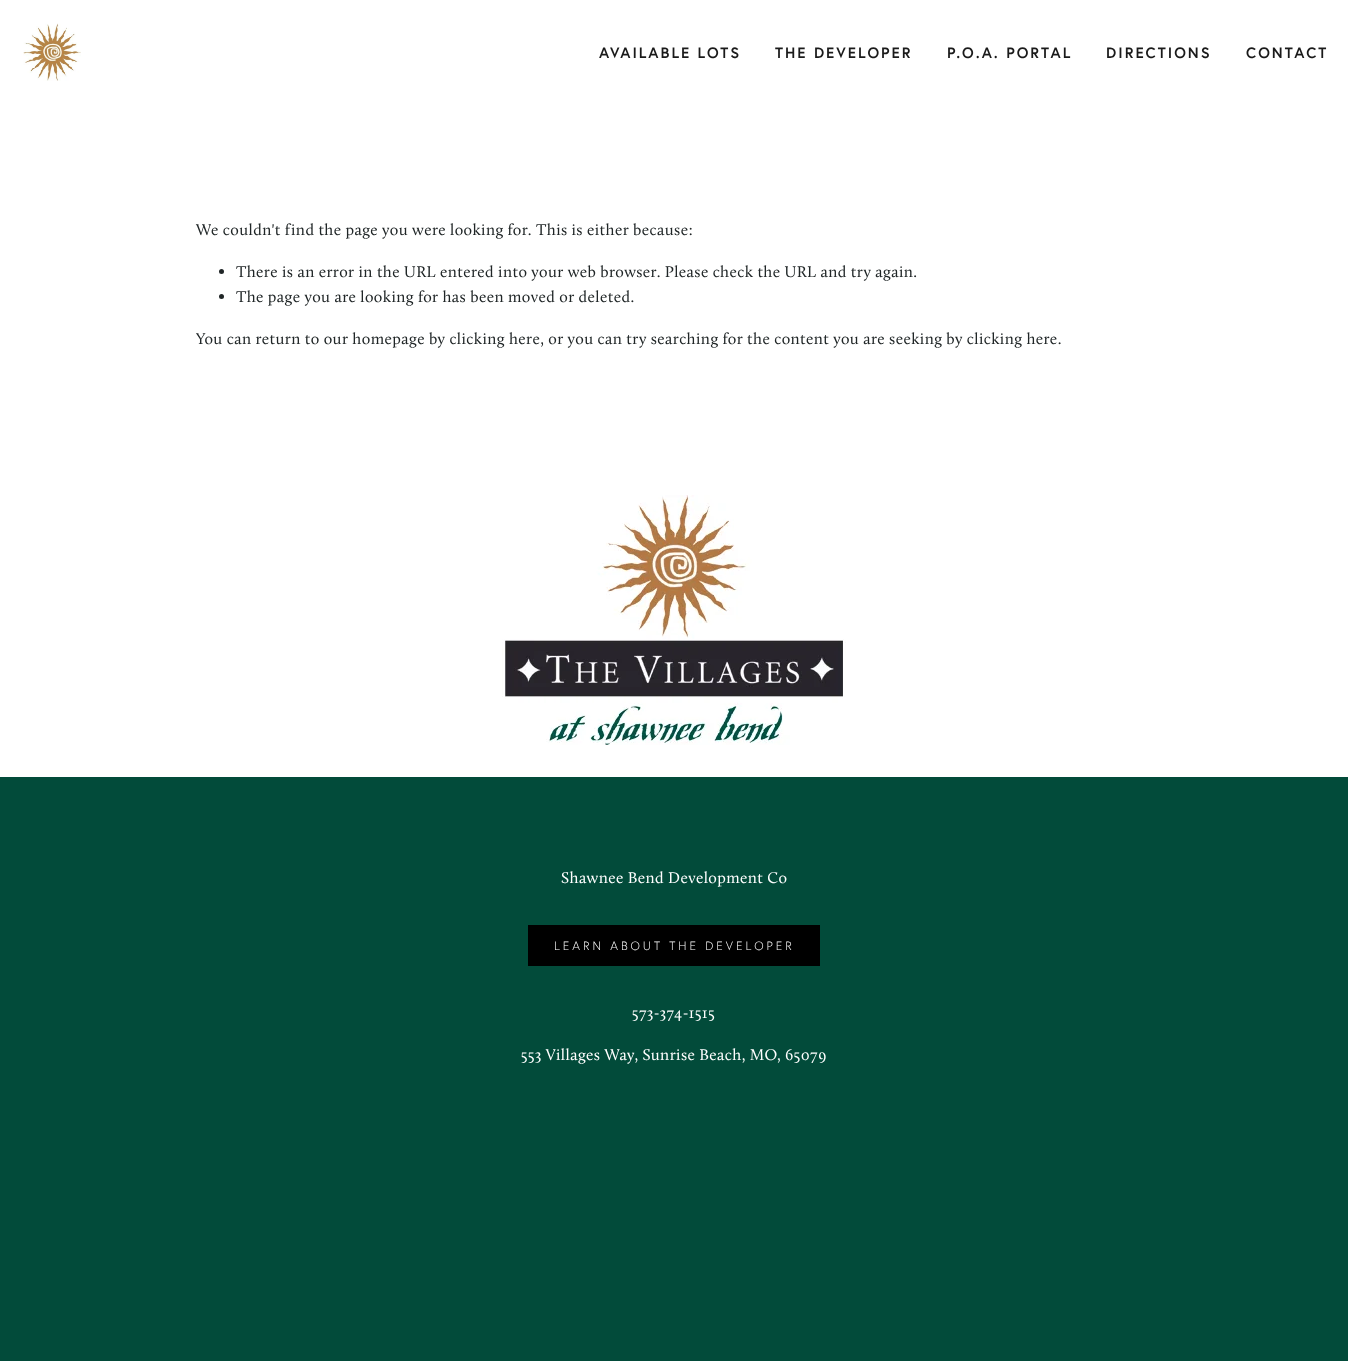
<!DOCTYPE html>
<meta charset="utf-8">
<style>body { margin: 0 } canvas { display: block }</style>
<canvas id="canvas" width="1348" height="1361"></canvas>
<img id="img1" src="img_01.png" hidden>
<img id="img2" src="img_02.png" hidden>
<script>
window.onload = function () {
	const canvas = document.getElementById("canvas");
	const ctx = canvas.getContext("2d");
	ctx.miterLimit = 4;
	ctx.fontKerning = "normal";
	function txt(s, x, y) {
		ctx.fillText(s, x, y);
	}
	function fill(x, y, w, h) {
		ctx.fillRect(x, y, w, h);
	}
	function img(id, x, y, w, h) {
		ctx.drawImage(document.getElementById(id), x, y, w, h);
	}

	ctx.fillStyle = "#024B3A";
	fill(0, 0, 1348, 1361);
	ctx.fillStyle = "#FFFFFF";
	fill(0, 0, 1348, 777);
	img("img1", 23, 23, 58, 58);
	ctx.fillStyle = "#202627";
	ctx.beginPath();
	ctx.arc(221.5, 271.5, 2.5, 0, Math.PI * 2);
	ctx.fill();
	ctx.beginPath();
	ctx.arc(221.5, 296.5, 2.5, 0, Math.PI * 2);
	ctx.fill();
	img("img2", 502, 495, 344, 250);
	ctx.fillStyle = "#000000";
	fill(528, 925, 292, 41);
	ctx.letterSpacing = "2px";
	ctx.font = "bold 15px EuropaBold";
	ctx.fillStyle = "#1A1A1A";
	txt("AVAILABLE LOTS", 599, 58);
	txt("THE DEVELOPER", 775, 58);
	txt("P.O.A. PORTAL", 947, 58);
	txt("DIRECTIONS", 1106, 58);
	txt("CONTACT", 1246, 58);
	ctx.letterSpacing = "0.4px";
	ctx.font = "16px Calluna";
	ctx.fillStyle = "#202627";
	txt("We couldn't find the page you were looking for. This is either because:", 196, 235);
	txt("There is an error in the URL entered into your web browser. Please check the URL and try again.", 236, 277);
	txt("The page you are looking for has been moved or deleted.", 236, 302);
	txt("You can return to our homepage by clicking here, or you can try searching for the content you are seeking by clicking here.", 196, 344);
	ctx.fillStyle = "#FFFFFF";
	txt("Shawnee Bend Development Co", 561, 883);
	ctx.letterSpacing = "3px";
	ctx.font = "300 12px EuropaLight";
	txt("LEARN ABOUT THE DEVELOPER", 554, 950);
	ctx.letterSpacing = "0.4px";
	ctx.font = "16px Calluna";
	txt("573-374-1515", 632, 1018);
	txt("553 Villages Way, Sunrise Beach, MO, 65079", 521, 1060);
};
</script>
